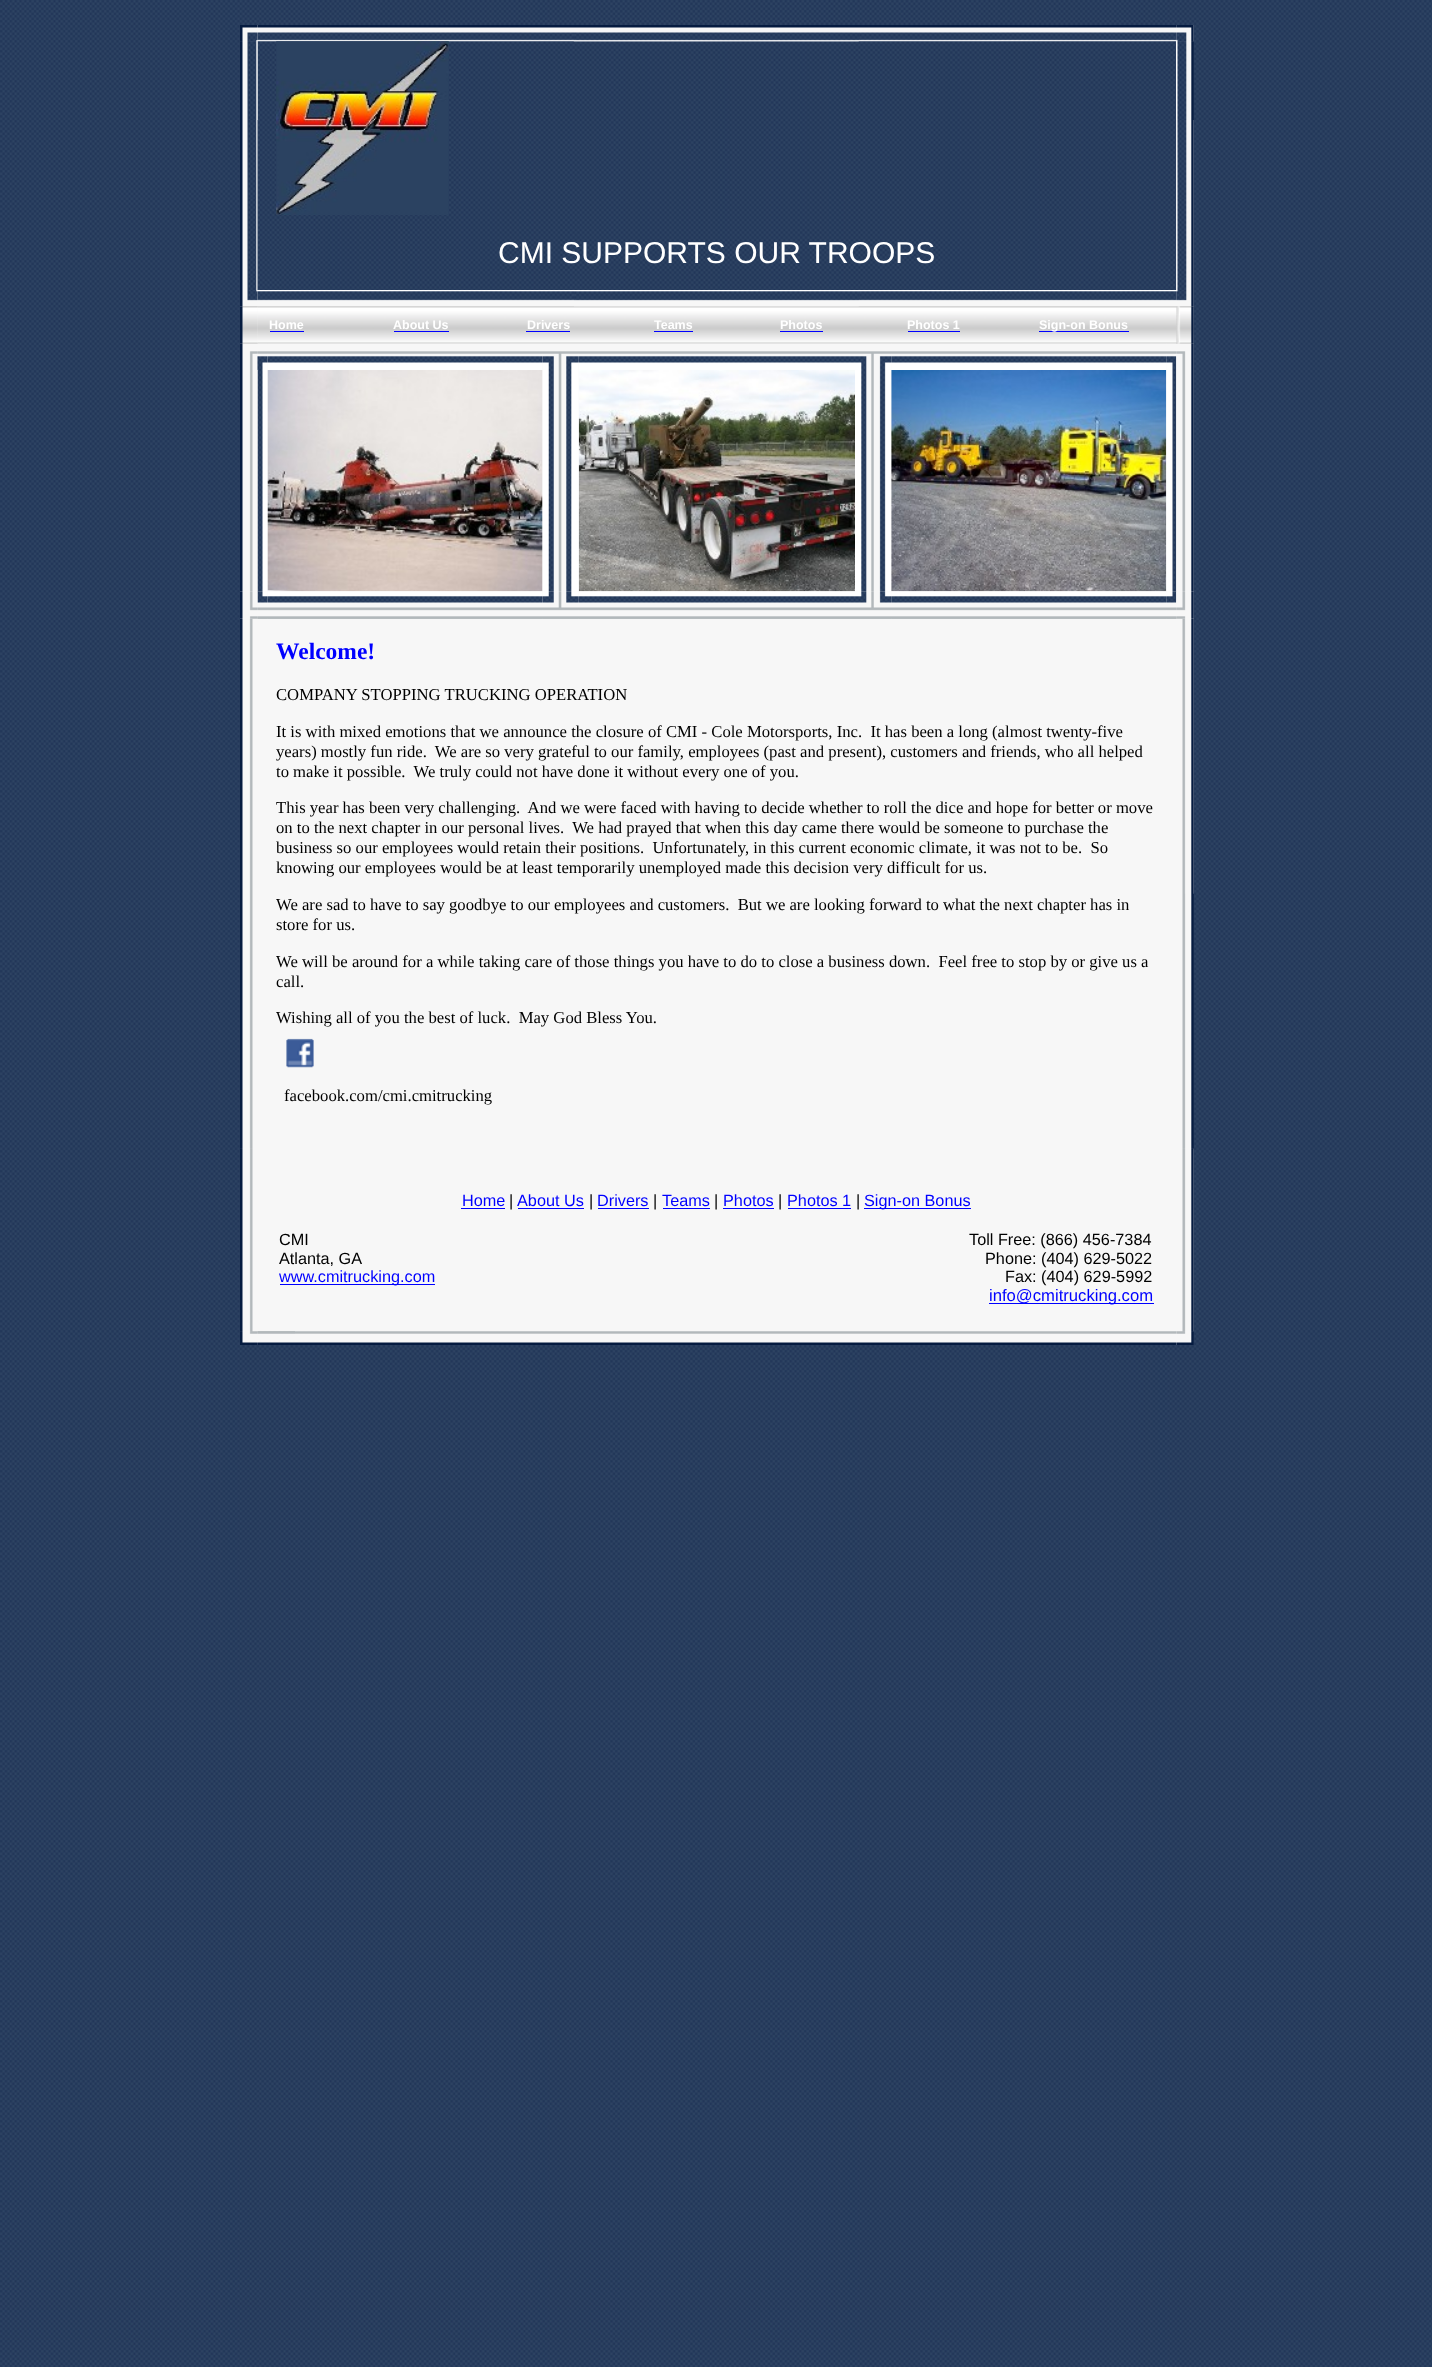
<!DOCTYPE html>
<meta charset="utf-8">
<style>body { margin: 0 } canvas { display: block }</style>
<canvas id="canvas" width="1432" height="2367"></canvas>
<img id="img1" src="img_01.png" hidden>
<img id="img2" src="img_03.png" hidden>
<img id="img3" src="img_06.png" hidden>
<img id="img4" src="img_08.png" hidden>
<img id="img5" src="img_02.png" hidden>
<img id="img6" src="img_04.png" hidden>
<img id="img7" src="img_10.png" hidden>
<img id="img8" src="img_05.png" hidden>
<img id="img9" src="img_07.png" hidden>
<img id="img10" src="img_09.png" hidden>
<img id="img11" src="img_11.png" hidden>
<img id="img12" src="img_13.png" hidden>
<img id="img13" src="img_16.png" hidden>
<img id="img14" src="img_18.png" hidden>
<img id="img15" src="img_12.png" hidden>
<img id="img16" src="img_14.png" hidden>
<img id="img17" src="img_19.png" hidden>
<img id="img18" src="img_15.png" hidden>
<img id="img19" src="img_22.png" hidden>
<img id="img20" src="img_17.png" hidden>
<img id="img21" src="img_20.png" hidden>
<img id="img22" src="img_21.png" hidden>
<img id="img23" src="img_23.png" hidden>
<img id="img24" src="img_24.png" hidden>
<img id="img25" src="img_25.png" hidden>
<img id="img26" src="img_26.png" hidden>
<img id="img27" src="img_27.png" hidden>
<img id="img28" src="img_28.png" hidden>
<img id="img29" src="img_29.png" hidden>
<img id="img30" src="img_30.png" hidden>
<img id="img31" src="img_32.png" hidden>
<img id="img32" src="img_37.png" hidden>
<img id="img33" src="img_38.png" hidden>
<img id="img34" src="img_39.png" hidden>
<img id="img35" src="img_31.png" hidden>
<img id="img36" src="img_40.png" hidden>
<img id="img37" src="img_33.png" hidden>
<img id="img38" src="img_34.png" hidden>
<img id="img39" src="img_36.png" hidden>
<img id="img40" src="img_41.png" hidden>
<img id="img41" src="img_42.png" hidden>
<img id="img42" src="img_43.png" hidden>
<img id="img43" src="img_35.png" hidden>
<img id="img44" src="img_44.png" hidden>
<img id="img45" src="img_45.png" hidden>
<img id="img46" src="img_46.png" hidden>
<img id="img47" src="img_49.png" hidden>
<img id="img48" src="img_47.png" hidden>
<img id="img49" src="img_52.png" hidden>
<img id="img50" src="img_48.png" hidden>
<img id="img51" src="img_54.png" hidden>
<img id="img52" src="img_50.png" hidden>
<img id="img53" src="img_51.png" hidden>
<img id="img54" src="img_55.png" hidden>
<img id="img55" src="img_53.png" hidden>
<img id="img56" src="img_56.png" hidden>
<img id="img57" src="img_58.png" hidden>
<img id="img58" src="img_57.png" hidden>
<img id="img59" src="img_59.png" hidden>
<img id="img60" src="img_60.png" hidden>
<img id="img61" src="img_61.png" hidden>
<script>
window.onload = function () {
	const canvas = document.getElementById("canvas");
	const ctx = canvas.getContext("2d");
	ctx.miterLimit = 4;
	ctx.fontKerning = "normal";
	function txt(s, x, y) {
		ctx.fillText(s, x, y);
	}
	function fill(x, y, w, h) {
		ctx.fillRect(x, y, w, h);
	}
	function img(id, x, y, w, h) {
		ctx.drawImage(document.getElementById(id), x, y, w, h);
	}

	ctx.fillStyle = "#FFFFFF";
	fill(0, 0, 1432, 2367);
	img("img1", 0, 0, 1432, 2367);
	ctx.fillStyle = "#F7F7F7";
	fill(240, 25, 954, 1320);
	img("img2", 257, 25, 920, 16);
	img("img3", 240, 41, 18, 249);
	img("img4", 257, 41, 920, 249);
	img("img5", 240, 25, 18, 17);
	img("img6", 573, 32, 286, 10);
	img("img7", 1176, 41, 18, 249);
	img("img8", 1176, 25, 18, 17);
	img("img9", 240, 41, 18, 79);
	img("img10", 276, 41, 173, 174);
	img("img11", 1176, 41, 18, 79);
	img("img12", 257, 290, 920, 11);
	img("img13", 240, 306, 18, 38);
	img("img14", 257, 306, 920, 38);
	img("img15", 240, 290, 18, 17);
	img("img16", 574, 291, 285, 16);
	img("img17", 1176, 306, 18, 38);
	img("img18", 1176, 290, 18, 17);
	img("img19", 257, 343, 920, 276);
	img("img20", 240, 306, 18, 38);
	ctx.fillStyle = "#0000FF";
	fill(270, 331, 34, 1);
	fill(394, 331, 55, 1);
	fill(526, 331, 44, 1);
	fill(654, 331, 39, 1);
	fill(780, 331, 43, 1);
	fill(908, 331, 52, 1);
	fill(1039, 331, 90, 1);
	img("img21", 1176, 306, 18, 38);
	img("img22", 240, 343, 18, 27);
	img("img23", 257, 343, 11, 27);
	img("img24", 267, 343, 276, 27);
	img("img25", 542, 343, 37, 27);
	img("img26", 578, 343, 277, 27);
	img("img27", 855, 343, 37, 27);
	img("img28", 891, 343, 276, 27);
	img("img29", 1166, 343, 11, 27);
	img("img30", 257, 370, 11, 222);
	img("img31", 542, 370, 37, 222);
	img("img32", 257, 591, 11, 28);
	img("img33", 267, 591, 276, 28);
	img("img34", 542, 591, 37, 28);
	img("img35", 267, 370, 276, 222);
	img("img36", 578, 591, 277, 28);
	img("img37", 578, 370, 277, 222);
	img("img38", 855, 370, 36, 222);
	img("img39", 1166, 370, 11, 222);
	img("img40", 855, 591, 37, 28);
	img("img41", 891, 591, 276, 28);
	img("img42", 1166, 591, 11, 28);
	img("img43", 891, 370, 276, 222);
	img("img44", 1176, 343, 18, 27);
	img("img45", 240, 370, 18, 222);
	img("img46", 1176, 370, 18, 222);
	img("img47", 240, 618, 13, 531);
	img("img48", 240, 591, 18, 28);
	img("img49", 1182, 618, 12, 531);
	img("img50", 1176, 591, 18, 28);
	img("img51", 240, 1148, 13, 184);
	img("img52", 240, 1148, 13, 1);
	img("img53", 286, 1038, 28, 30);
	img("img54", 1182, 1148, 12, 184);
	img("img55", 1182, 893, 12, 256);
	fill(461, 1208, 44, 1);
	fill(518, 1208, 66, 1);
	fill(598, 1208, 51, 1);
	fill(663, 1208, 47, 1);
	fill(723, 1208, 51, 1);
	fill(788, 1208, 63, 1);
	fill(864, 1208, 107, 1);
	fill(280, 1284, 155, 1);
	fill(989, 1303, 165, 1);
	img("img56", 240, 1331, 13, 1);
	img("img57", 257, 1331, 920, 14);
	img("img58", 240, 1331, 18, 14);
	img("img59", 257, 1331, 38, 14);
	img("img60", 1176, 1331, 18, 14);
	img("img61", 1176, 1331, 18, 14);
	ctx.font = "30px Liberation Sans";
	ctx.fillStyle = "#FFFFFF";
	txt("CMI SUPPORTS OUR TROOPS", 498, 263);
	ctx.font = "bold 12.5px Liberation Sans";
	txt("Home", 269, 329);
	txt("About Us", 393, 329);
	txt("Drivers", 527, 329);
	txt("Teams", 654, 329);
	txt("Photos", 780, 329);
	txt("Photos 1", 907, 329);
	txt("Sign-on Bonus", 1039, 329);
	ctx.font = "bold 23.5px Liberation Serif";
	ctx.fillStyle = "#0000FF";
	txt("Welcome!", 276, 659);
	ctx.font = "16.67px Liberation Serif";
	ctx.fillStyle = "#000000";
	txt("COMPANY STOPPING TRUCKING OPERATION", 276, 700);
	txt("It is with mixed emotions that we announce the closure of CMI - Cole Motorsports, Inc.  It has been a long (almost twenty-five", 276, 737);
	txt("years) mostly fun ride.  We are so very grateful to our family, employees (past and present), customers and friends, who all helped", 276, 757);
	txt("to make it possible.  We truly could not have done it without every one of you.", 276, 777);
	txt("This year has been very challenging.  And we were faced with having to decide whether to roll the dice and hope for better or move", 276, 813);
	txt("on to the next chapter in our personal lives.  We had prayed that when this day came there would be someone to purchase the", 276, 833);
	txt("business so our employees would retain their positions.  Unfortunately, in this current economic climate, it was not to be.  So", 276, 853);
	txt("knowing our employees would be at least temporarily unemployed made this decision very difficult for us.", 276, 873);
	txt("We are sad to have to say goodbye to our employees and customers.  But we are looking forward to what the next chapter has in", 276, 910);
	txt("store for us.", 276, 930);
	txt("We will be around for a while taking care of those things you have to do to close a business down.  Feel free to stop by or give us a", 276, 967);
	txt("call.", 276, 987);
	txt("Wishing all of you the best of luck.  May God Bless You.", 276, 1023);
	txt("facebook.com/cmi.cmitrucking", 284, 1101);
	ctx.font = "16.25px Liberation Sans";
	ctx.fillStyle = "#0000FF";
	txt("Home", 462, 1206);
	ctx.fillStyle = "#000000";
	txt("|", 509, 1206);
	ctx.fillStyle = "#0000FF";
	txt("About Us", 517, 1206);
	ctx.fillStyle = "#000000";
	txt("|", 589, 1206);
	ctx.fillStyle = "#0000FF";
	txt("Drivers", 597, 1206);
	ctx.fillStyle = "#000000";
	txt("|", 653, 1206);
	ctx.fillStyle = "#0000FF";
	txt("Teams", 662, 1206);
	ctx.fillStyle = "#000000";
	txt("|", 714, 1206);
	ctx.fillStyle = "#0000FF";
	txt("Photos", 723, 1206);
	ctx.fillStyle = "#000000";
	txt("|", 778, 1206);
	ctx.fillStyle = "#0000FF";
	txt("Photos 1", 787, 1206);
	ctx.fillStyle = "#000000";
	txt("|", 856, 1206);
	ctx.fillStyle = "#0000FF";
	txt("Sign-on Bonus", 864, 1206);
	ctx.fillStyle = "#000000";
	txt("CMI", 279, 1245);
	txt("Atlanta, GA", 279, 1264);
	ctx.fillStyle = "#0000FF";
	txt("www.cmitrucking.com", 279, 1282);
	ctx.fillStyle = "#000000";
	txt("Toll Free: (866) 456-7384", 969, 1245);
	txt("Phone: (404) 629-5022", 985, 1264);
	txt("Fax: (404) 629-5992", 1005, 1282);
	ctx.font = "16.67px Liberation Sans";
	ctx.fillStyle = "#0000FF";
	txt("info@cmitrucking.com", 989, 1301);
};
</script>
